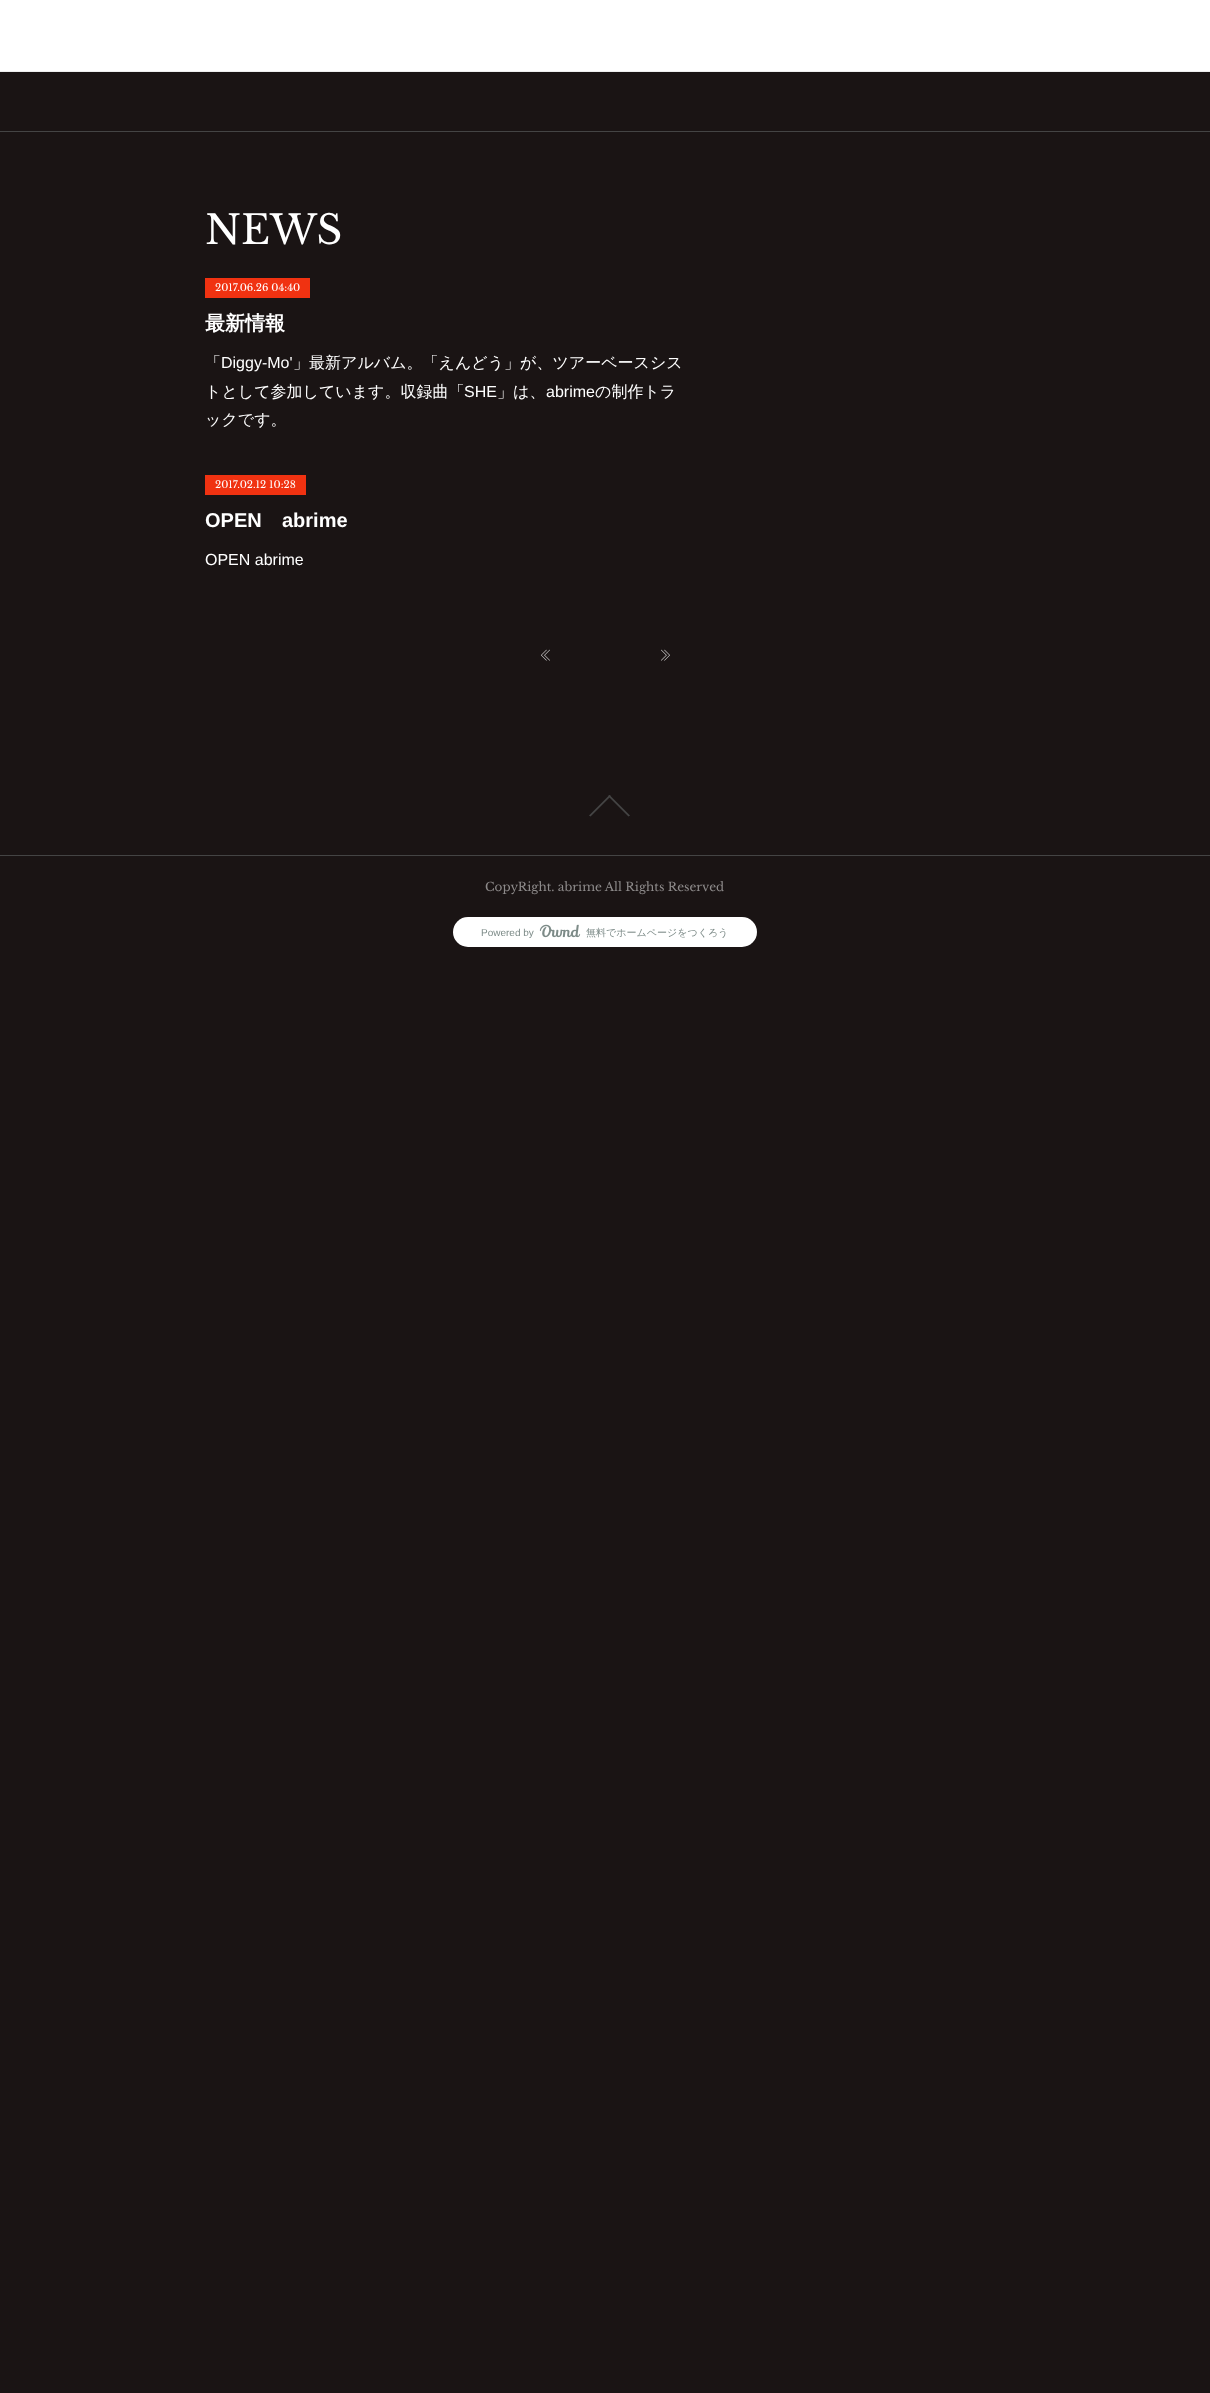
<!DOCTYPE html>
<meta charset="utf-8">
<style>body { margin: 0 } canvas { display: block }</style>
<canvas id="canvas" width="1210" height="2393"></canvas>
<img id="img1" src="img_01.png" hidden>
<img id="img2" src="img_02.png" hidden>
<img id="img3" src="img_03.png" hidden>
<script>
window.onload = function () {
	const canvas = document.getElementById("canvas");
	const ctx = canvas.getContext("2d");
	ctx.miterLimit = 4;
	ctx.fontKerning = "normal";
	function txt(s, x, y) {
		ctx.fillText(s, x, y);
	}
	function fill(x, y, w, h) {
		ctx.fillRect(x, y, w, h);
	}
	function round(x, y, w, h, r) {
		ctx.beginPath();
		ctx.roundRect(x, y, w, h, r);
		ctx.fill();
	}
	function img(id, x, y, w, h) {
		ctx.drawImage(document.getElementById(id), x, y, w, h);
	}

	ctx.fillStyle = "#1A1414";
	fill(0, 0, 1210, 2393);
	ctx.fillStyle = "#FFFFFF";
	fill(0, 0, 1210, 71);
	ctx.fillStyle = "#EEEEEE";
	fill(0, 71, 1210, 1);
	ctx.fillStyle = "#444444";
	fill(0, 131, 1210, 1);
	ctx.fillStyle = "#F03211";
	fill(205, 278, 105, 20);
	fill(205, 475, 101, 20);
	img("img1", 541, 649, 9, 12);
	img("img2", 661, 649, 9, 12);
	ctx.fillStyle = "#444444";
	ctx.beginPath();
	ctx.moveTo(589, 815.5);
	ctx.lineTo(609.5, 795);
	ctx.lineTo(611, 796);
	ctx.lineTo(590.5, 816.5);
	ctx.closePath();
	ctx.fill();
	ctx.beginPath();
	ctx.moveTo(608, 796);
	ctx.lineTo(609.5, 795);
	ctx.lineTo(630, 815.5);
	ctx.lineTo(628.5, 816.5);
	ctx.closePath();
	ctx.fill();
	fill(0, 855, 1210, 1);
	ctx.fillStyle = "#FFFFFF";
	round(453, 917, 304, 30, 15);
	img("img3", 539, 924, 42, 14);
	ctx.font = "40px Libre Baskerville";
	txt("NEWS", 205, 244);
	ctx.font = "10px Libre Baskerville";
	txt("2017.06.26 04:40", 215, 291);
	ctx.font = "bold 20px WenQuanYi Zen Hei";
	txt("最新情報", 205, 330);
	ctx.font = "500 16px WenQuanYi Zen Hei";
	txt("「", 205, 368);
	ctx.font = "16px Liberation Sans";
	txt("Diggy-Mo'", 221, 368);
	ctx.font = "500 16px WenQuanYi Zen Hei";
	txt("」最新アルバム。「えんどう」が、ツアーベースシス", 293, 368);
	txt("トとして参加しています。収録曲「", 205, 397);
	ctx.font = "16px Liberation Sans";
	txt("SHE", 464, 397);
	ctx.font = "500 16px WenQuanYi Zen Hei";
	txt("」は、", 497, 397);
	ctx.font = "16px Liberation Sans";
	txt("abrime", 546, 397);
	ctx.font = "500 16px WenQuanYi Zen Hei";
	txt("の制作トラ", 595, 397);
	txt("ックです。", 205, 425);
	ctx.font = "10px Libre Baskerville";
	txt("2017.02.12 10:28", 215, 488);
	ctx.font = "bold 20px Liberation Sans";
	txt("OPEN", 205, 527);
	txt("abrime", 282, 527);
	ctx.font = "16px Liberation Sans";
	txt("OPEN abrime", 205, 565);
	ctx.font = "12px Libre Baskerville";
	ctx.fillStyle = "#8D8A8A";
	txt("CopyRight. abrime All Rights Reserved", 485, 891);
	ctx.font = "10px Liberation Sans";
	ctx.fillStyle = "#7D8B88";
	txt("Powered by", 481, 936);
	ctx.font = "500 10px WenQuanYi Zen Hei";
	txt("無料でホームページをつくろう", 586, 936);
};
</script>
